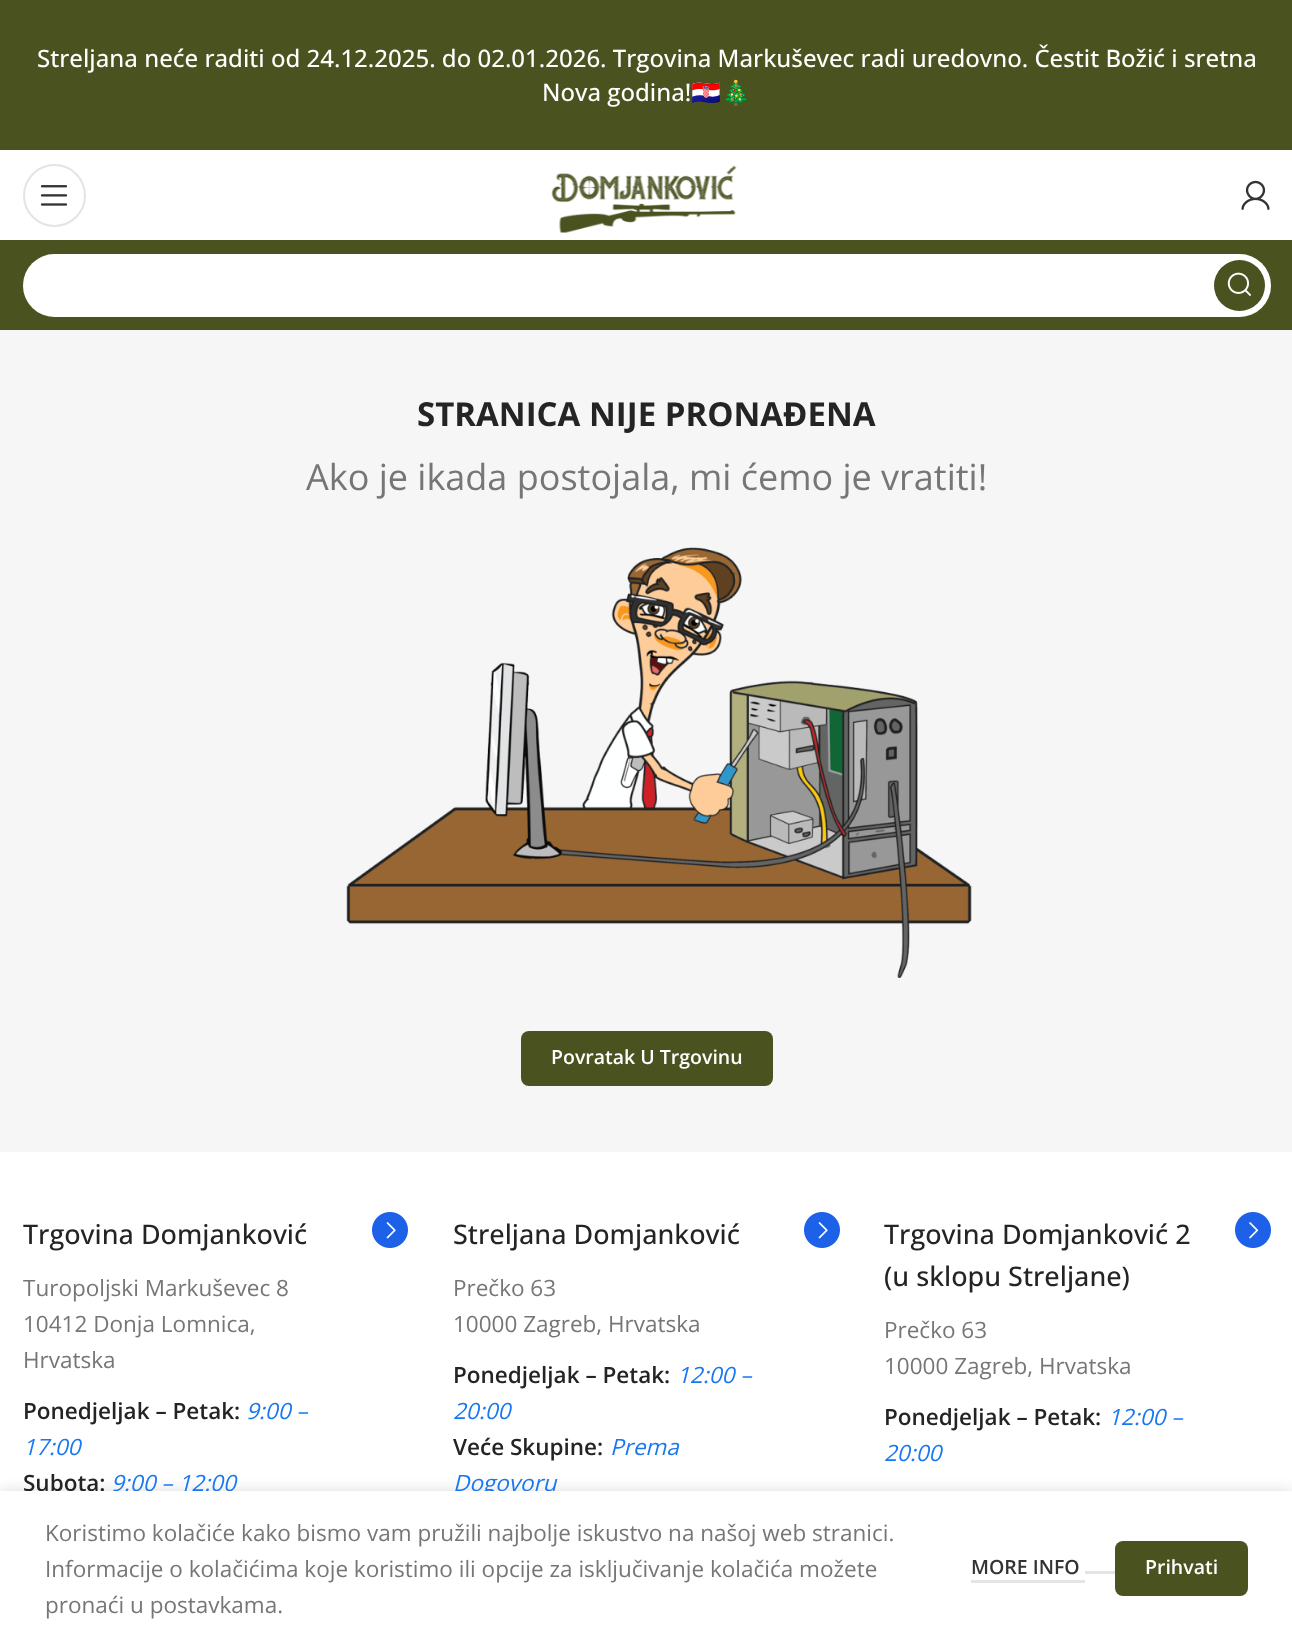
<!DOCTYPE html>
<meta charset="utf-8">
<style>body { margin: 0 } canvas { display: block }</style>
<canvas id="canvas" width="1292" height="1644"></canvas>
<img id="img1" src="img_01.png" hidden>
<img id="img2" src="img_02.png" hidden>
<img id="img3" src="img_03.png" hidden>
<img id="img4" src="img_04.png" hidden>
<img id="img5" src="img_05.png" hidden>
<img id="img6" src="img_06.png" hidden>
<img id="img7" src="img_07.png" hidden>
<script>
window.onload = function () {
	const canvas = document.getElementById("canvas");
	const ctx = canvas.getContext("2d");
	ctx.miterLimit = 4;
	ctx.fontKerning = "normal";
	function txt(s, x, y) {
		ctx.fillText(s, x, y);
	}
	function fill(x, y, w, h) {
		ctx.fillRect(x, y, w, h);
	}
	function round(x, y, w, h, r) {
		ctx.beginPath();
		ctx.roundRect(x, y, w, h, r);
		ctx.fill();
	}
	function img(id, x, y, w, h) {
		ctx.drawImage(document.getElementById(id), x, y, w, h);
	}

	ctx.fillStyle = "#FFFFFF";
	fill(0, 0, 1292, 1644);
	ctx.fillStyle = "#4A521F";
	fill(0, 0, 1292, 150);
	ctx.beginPath();
	ctx.arc(54.5, 195.5, 30.5, 0, Math.PI * 2);
	ctx.strokeStyle = "#E4E4E4";
	ctx.lineWidth = 2;
	ctx.stroke();
	img("img1", 40, 185, 28, 21);
	img("img2", 551, 165, 186, 68);
	img("img3", 1241, 180, 29, 30);
	fill(0, 240, 1292, 90);
	ctx.fillStyle = "#FFFFFF";
	round(23, 254, 1248, 63, 31.5);
	ctx.beginPath();
	ctx.roundRect(24, 255, 1246, 61, 30.5);
	ctx.strokeStyle = "rgba(255, 255, 255, 0.2)";
	ctx.stroke();
	ctx.fillStyle = "#4A521F";
	ctx.beginPath();
	ctx.arc(1239.5, 285.5, 25.5, 0, Math.PI * 2);
	ctx.fill();
	img("img4", 1227, 272, 24, 24);
	ctx.fillStyle = "#F6F6F6";
	fill(0, 330, 1292, 822);
	img("img5", 346, 547, 626, 431);
	ctx.fillStyle = "#4A521F";
	round(521, 1031, 252, 55, 8);
	img("img6", 372, 1212, 36, 36);
	img("img6", 804, 1212, 36, 36);
	img("img7", 1235, 1212, 36, 36);
	ctx.fillStyle = "rgba(0, 0, 0, 0.14)";
	ctx.filter = "blur(7px)";
	ctx.beginPath();
	ctx.rect(0, 1491, 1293, 153);
	ctx.fill();
	ctx.filter = "none";
	ctx.font = "500 24px Open Sans";
	ctx.fillStyle = "#FFFFFF";
	txt("Streljana neće raditi od 24.12.2025. do 02.01.2026. Trgovina Markuševec radi uredovno. Čestit Božić i sretna", 37, 67);
	txt("Nova godina!", 542, 101);
	ctx.font = "24px Noto Color Emoji";
	txt("🇭🇷🎄", 691, 101);
	ctx.font = "bold 33px Open Sans";
	ctx.fillStyle = "#242424";
	txt("STRANICA NIJE PRONAĐENA", 417, 426);
	ctx.font = "36px Open Sans";
	ctx.fillStyle = "#767676";
	txt("Ako je ikada postojala, mi ćemo je vratiti!", 306, 490);
	ctx.font = "600 19.5px Open Sans";
	ctx.fillStyle = "#FFFFFF";
	txt("Povratak U Trgovinu", 551, 1064);
	ctx.font = "500 27px Open Sans";
	ctx.fillStyle = "#242424";
	txt("Trgovina Domjanković", 23, 1244);
	ctx.font = "22.5px Open Sans";
	ctx.fillStyle = "#767676";
	txt("Turopoljski Markuševec 8", 23, 1296);
	txt("10412 Donja Lomnica,", 23, 1332);
	txt("Hrvatska", 23, 1368);
	ctx.font = "600 22.5px Open Sans";
	ctx.fillStyle = "#242424";
	txt("Ponedjeljak – Petak:", 23, 1419);
	ctx.font = "italic 22.5px Open Sans";
	ctx.fillStyle = "#1877F2";
	txt("9:00 –", 246, 1419);
	txt("17:00", 23, 1455);
	ctx.font = "600 22.5px Open Sans";
	ctx.fillStyle = "#242424";
	txt("Subota:", 23, 1491);
	ctx.font = "italic 22.5px Open Sans";
	ctx.fillStyle = "#1877F2";
	txt("9:00 – 12:00", 111, 1491);
	ctx.font = "500 27px Open Sans";
	ctx.fillStyle = "#242424";
	txt("Streljana Domjanković", 453, 1244);
	ctx.font = "22.5px Open Sans";
	ctx.fillStyle = "#767676";
	txt("Prečko 63", 453, 1296);
	txt("10000 Zagreb, Hrvatska", 453, 1332);
	ctx.font = "600 22.5px Open Sans";
	ctx.fillStyle = "#242424";
	txt("Ponedjeljak – Petak:", 453, 1383);
	ctx.font = "italic 22.5px Open Sans";
	ctx.fillStyle = "#1877F2";
	txt("12:00 –", 677, 1383);
	txt("20:00", 453, 1419);
	ctx.font = "600 22.5px Open Sans";
	ctx.fillStyle = "#242424";
	txt("Veće Skupine:", 453, 1455);
	ctx.font = "italic 22.5px Open Sans";
	ctx.fillStyle = "#1877F2";
	txt("Prema", 610, 1455);
	txt("Dogovoru", 453, 1491);
	ctx.font = "500 27px Open Sans";
	ctx.fillStyle = "#242424";
	txt("Trgovina Domjanković 2", 884, 1244);
	txt("(u sklopu Streljane)", 884, 1286);
	ctx.font = "22.5px Open Sans";
	ctx.fillStyle = "#767676";
	txt("Prečko 63", 884, 1338);
	txt("10000 Zagreb, Hrvatska", 884, 1374);
	ctx.font = "600 22.5px Open Sans";
	ctx.fillStyle = "#242424";
	txt("Ponedjeljak – Petak:", 884, 1425);
	ctx.font = "italic 22.5px Open Sans";
	ctx.fillStyle = "#1877F2";
	txt("12:00 –", 1108, 1425);
	txt("20:00", 884, 1461);
	ctx.fillStyle = "#FFFFFF";
	fill(0, 1491, 1292, 153);
	ctx.font = "22.5px Open Sans";
	ctx.fillStyle = "#767676";
	txt("Koristimo kolačiće kako bismo vam pružili najbolje iskustvo na našoj web stranici.", 45, 1541);
	txt("Informacije o kolačićima koje koristimo ili opcije za isključivanje kolačića možete", 45, 1577);
	txt("pronaći u postavkama.", 45, 1613);
	ctx.font = "600 19.5px Open Sans";
	ctx.fillStyle = "#333333";
	txt("MORE INFO", 971, 1574);
	ctx.fillStyle = "#E4E4E4";
	fill(971, 1580, 114, 3);
	fill(1085, 1571, 30, 3);
	ctx.fillStyle = "#4A521F";
	round(1115, 1541, 133, 55, 8);
	ctx.fillStyle = "#FFFFFF";
	txt("Prihvati", 1145, 1574);
};
</script>
